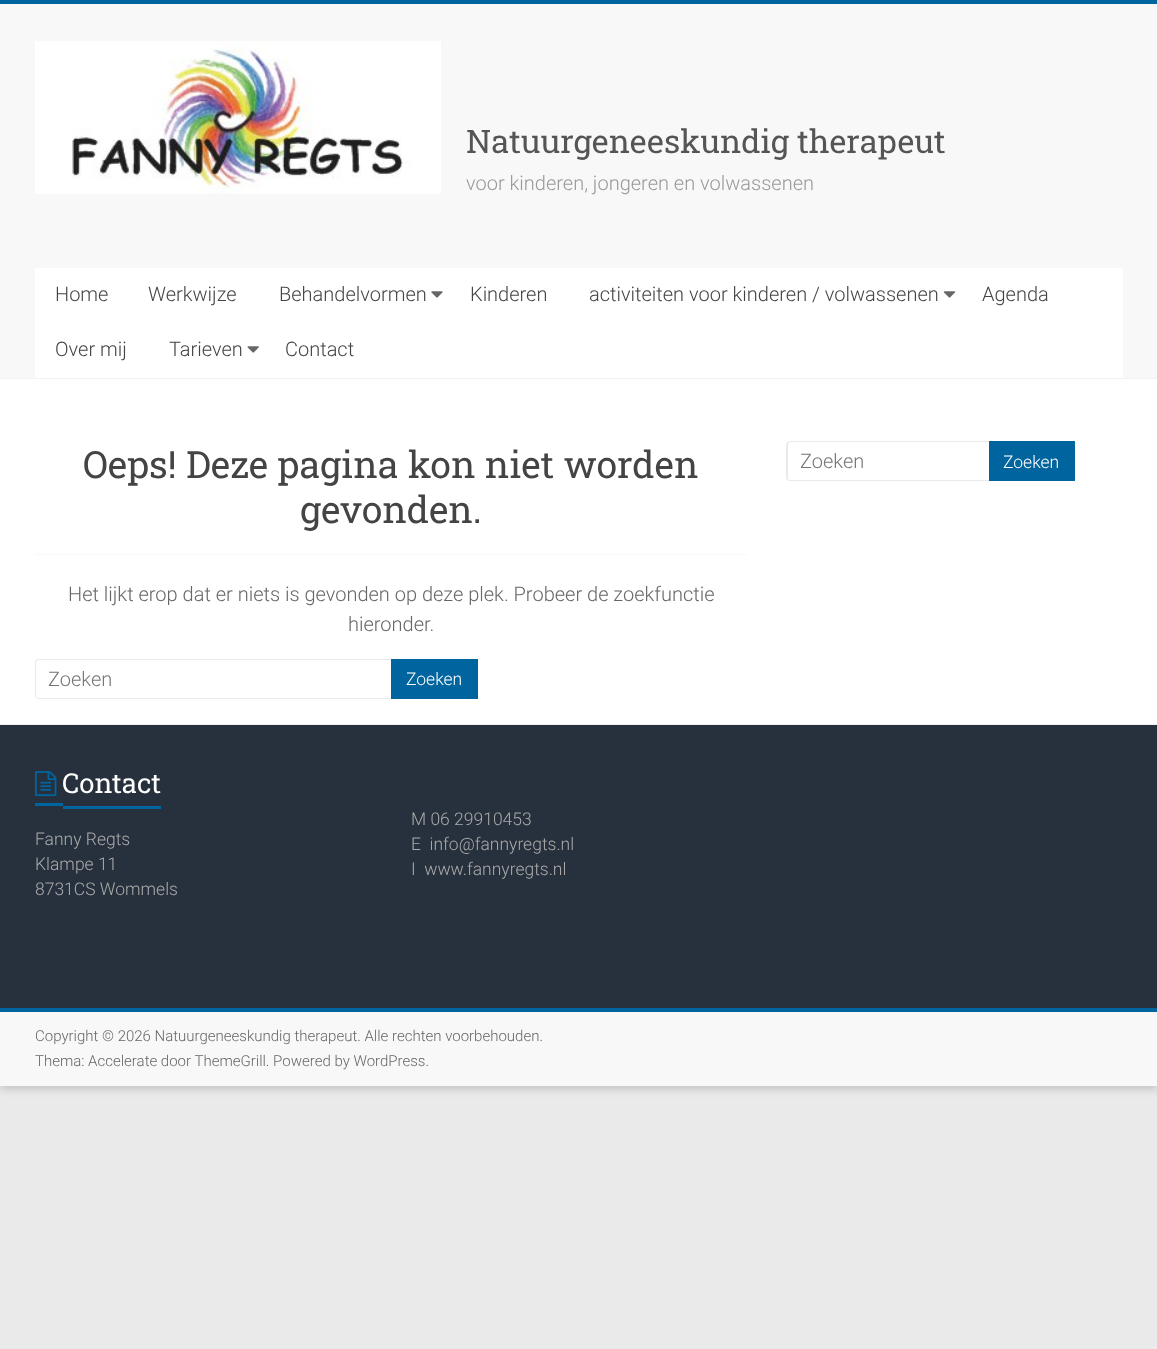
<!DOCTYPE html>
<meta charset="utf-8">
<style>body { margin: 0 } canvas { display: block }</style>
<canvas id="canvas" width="1157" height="1349"></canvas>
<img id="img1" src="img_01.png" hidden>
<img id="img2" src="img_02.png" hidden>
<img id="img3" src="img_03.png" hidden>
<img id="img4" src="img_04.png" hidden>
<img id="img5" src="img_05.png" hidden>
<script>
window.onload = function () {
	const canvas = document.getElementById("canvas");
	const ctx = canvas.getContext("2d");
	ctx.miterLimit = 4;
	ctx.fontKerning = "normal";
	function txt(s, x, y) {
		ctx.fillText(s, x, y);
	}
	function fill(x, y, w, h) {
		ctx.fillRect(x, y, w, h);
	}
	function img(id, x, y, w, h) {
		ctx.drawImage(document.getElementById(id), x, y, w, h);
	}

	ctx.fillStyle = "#EAEAEA";
	fill(0, 0, 1157, 1349);
	ctx.fillStyle = "rgba(100, 100, 100, 0.3)";
	ctx.filter = "blur(4px)";
	ctx.beginPath();
	ctx.rect(0, 3, 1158, 1086);
	ctx.fill();
	ctx.filter = "none";
	ctx.fillStyle = "#FFFFFF";
	fill(0, 379, 1157, 345);
	ctx.fillStyle = "#00649E";
	fill(0, 0, 1157, 4);
	ctx.fillStyle = "#F8F8F8";
	fill(0, 4, 1157, 374);
	ctx.fillStyle = "#F2F2F2";
	fill(0, 378, 1157, 1);
	img("img1", 35, 41, 406, 153);
	ctx.fillStyle = "#FFFFFF";
	fill(35, 268, 1088, 110);
	img("img2", 431, 291, 12, 7);
	img("img3", 943, 291, 13, 7);
	img("img4", 247, 346, 12, 7);
	ctx.fillStyle = "#F8F8F8";
	fill(35, 554, 713, 1);
	ctx.fillStyle = "#EAEAEA";
	ctx.beginPath();
	ctx.moveTo(39, 659);
	ctx.lineTo(391, 659);
	ctx.lineTo(391, 699);
	ctx.lineTo(39, 699);
	ctx.bezierCurveTo(37, 699, 35, 697, 35, 695);
	ctx.lineTo(35, 662);
	ctx.bezierCurveTo(35, 660, 37, 659, 39, 659);
	ctx.closePath();
	ctx.moveTo(39, 660);
	ctx.lineTo(391, 660);
	ctx.lineTo(391, 698);
	ctx.lineTo(39, 698);
	ctx.bezierCurveTo(37, 698, 36, 696, 36, 695);
	ctx.lineTo(36, 662);
	ctx.bezierCurveTo(36, 661, 37, 660, 39, 660);
	ctx.closePath();
	ctx.fill("evenodd");
	ctx.fillStyle = "#00649E";
	fill(391, 659, 87, 40);
	ctx.fillStyle = "#EAEAEA";
	ctx.beginPath();
	ctx.moveTo(790, 441);
	ctx.lineTo(989, 441);
	ctx.lineTo(989, 481);
	ctx.lineTo(790, 481);
	ctx.bezierCurveTo(788, 481, 786, 480, 786, 478);
	ctx.lineTo(786, 445);
	ctx.bezierCurveTo(786, 443, 788, 441, 790, 441);
	ctx.closePath();
	ctx.moveTo(790, 442);
	ctx.lineTo(989, 442);
	ctx.lineTo(989, 480);
	ctx.lineTo(790, 480);
	ctx.bezierCurveTo(789, 480, 788, 479, 788, 478);
	ctx.lineTo(788, 445);
	ctx.bezierCurveTo(788, 444, 789, 442, 790, 442);
	ctx.closePath();
	ctx.fill("evenodd");
	ctx.fillStyle = "#00649E";
	fill(989, 441, 86, 40);
	ctx.fillStyle = "#27313D";
	fill(0, 725, 1157, 283);
	ctx.fillStyle = "#F2F2F2";
	fill(0, 724, 1157, 1);
	img("img5", 35, 771, 22, 26);
	ctx.fillStyle = "#00649E";
	fill(35, 803, 28, 3);
	fill(63, 806, 98, 3);
	ctx.fillStyle = "#F8F8F8";
	fill(0, 1012, 1157, 74);
	ctx.fillStyle = "#00649E";
	fill(0, 1008, 1157, 4);
	ctx.font = "32.5px Roboto Slab";
	ctx.fillStyle = "#555555";
	txt("Natuurgeneeskundig therapeut", 466, 153);
	ctx.font = "300 20px Roboto";
	ctx.fillStyle = "#999999";
	txt("voor kinderen, jongeren en volwassenen", 466, 190);
	ctx.fillStyle = "#444444";
	txt("Home", 55, 301);
	txt("Werkwijze", 148, 301);
	txt("Behandelvormen", 279, 301);
	txt("Kinderen", 470, 301);
	txt("activiteiten voor kinderen / volwassenen", 589, 301);
	txt("Agenda", 982, 301);
	txt("Over mij", 55, 356);
	txt("Tarieven", 169, 356);
	txt("Contact", 285, 356);
	ctx.font = "37.5px Roboto Slab";
	txt("Oeps! Deze pagina kon niet worden", 83, 478);
	txt("gevonden.", 300, 523);
	ctx.font = "300 20px Roboto";
	ctx.fillStyle = "#666666";
	txt("Het lijkt erop dat er niets is gevonden op deze plek. Probeer de zoekfunctie", 68, 601);
	txt("hieronder.", 348, 631);
	ctx.fillStyle = "#757575";
	txt("Zoeken", 48, 686);
	ctx.font = "300 17.5px Roboto";
	ctx.fillStyle = "#FFFFFF";
	txt("Zoeken", 406, 685);
	ctx.font = "300 20px Roboto";
	ctx.fillStyle = "#757575";
	txt("Zoeken", 800, 468);
	ctx.font = "300 17.5px Roboto";
	ctx.fillStyle = "#FFFFFF";
	txt("Zoeken", 1003, 468);
	ctx.font = "27.5px Roboto Slab";
	txt("Contact", 62, 793);
	ctx.font = "300 17.5px Roboto";
	ctx.fillStyle = "#AAAAAA";
	txt("Fanny Regts", 35, 845);
	txt("Klampe 11", 35, 870);
	txt("8731CS Wommels", 35, 895);
	txt("M 06 29910453", 411, 825);
	txt("E  info@fannyregts.nl", 411, 850);
	txt("I  www.fannyregts.nl", 411, 875);
	ctx.font = "300 15px Roboto";
	ctx.fillStyle = "#666666";
	txt("Copyright © 2026 Natuurgeneeskundig therapeut. Alle rechten voorbehouden.", 35, 1041);
	txt("Thema: Accelerate door ThemeGrill. Powered by WordPress.", 35, 1066);
};
</script>
